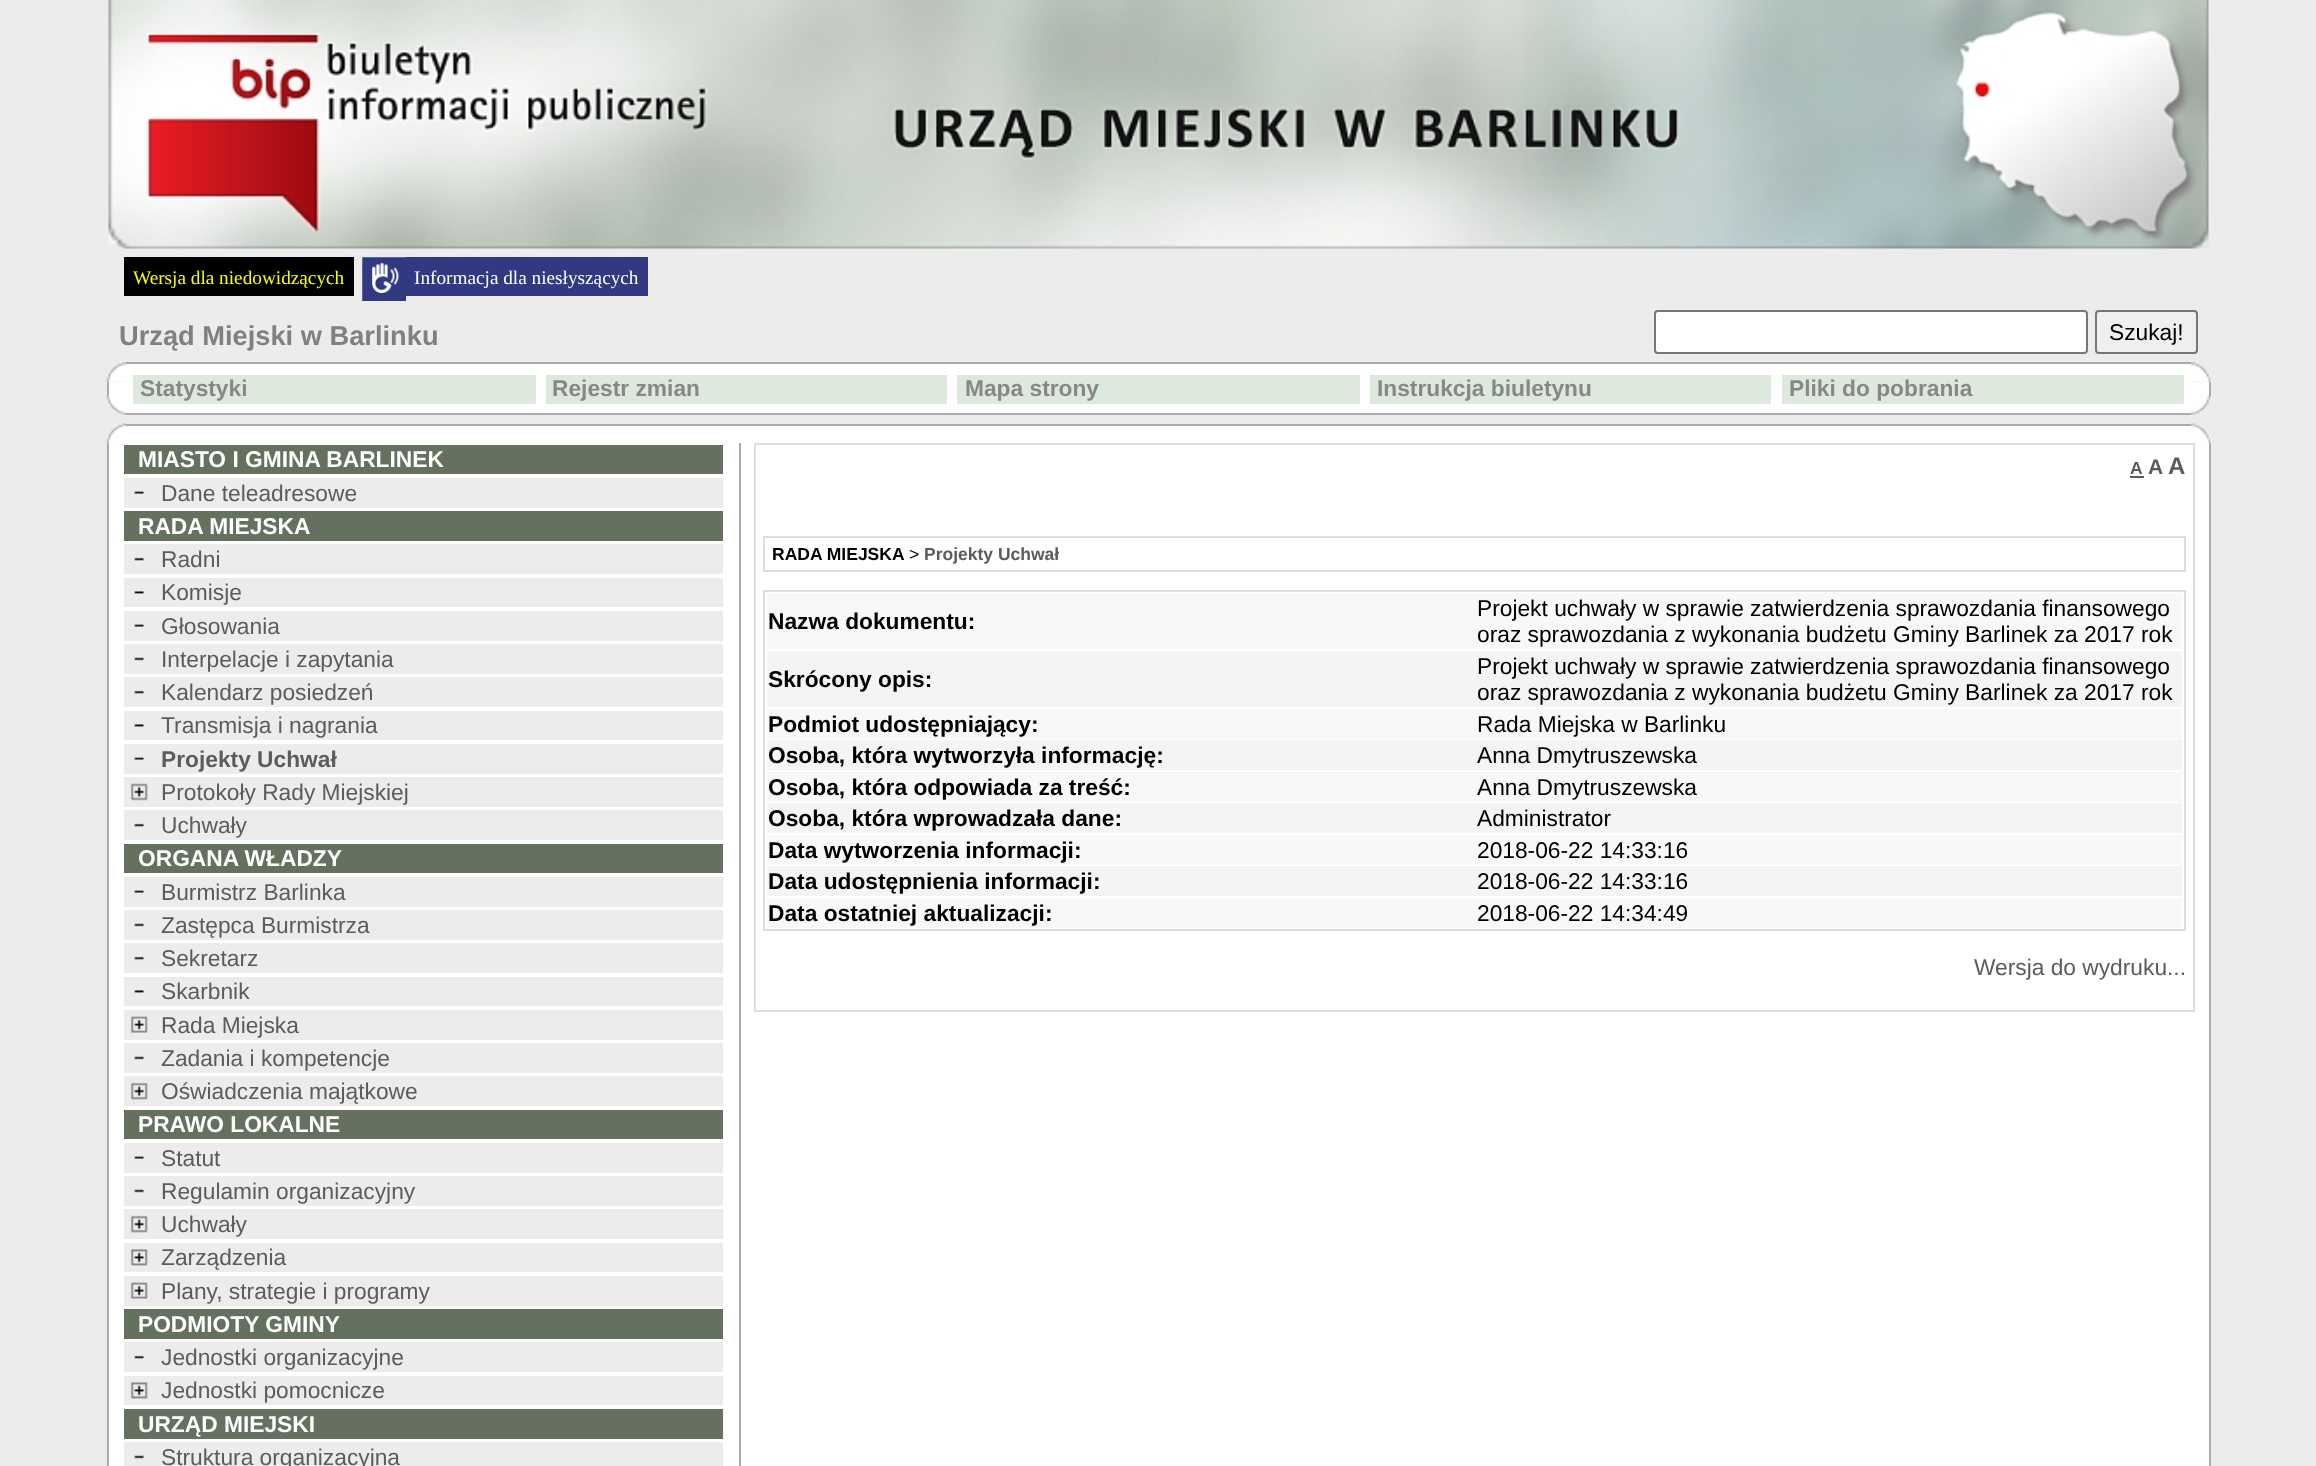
<!DOCTYPE html>
<meta charset="utf-8">
<style>body { margin: 0 } canvas { display: block }</style>
<canvas id="canvas" width="2316" height="1466"></canvas>
<img id="img1" src="img_01.png" hidden>
<img id="img2" src="img_02.png" hidden>
<img id="img3" src="img_03.png" hidden>
<img id="img4" src="img_04.png" hidden>
<img id="img5" src="img_05.png" hidden>
<img id="img6" src="img_06.png" hidden>
<img id="img7" src="img_07.png" hidden>
<img id="img8" src="img_08.png" hidden>
<img id="img9" src="img_09.png" hidden>
<img id="img10" src="img_10.png" hidden>
<img id="img11" src="img_11.png" hidden>
<img id="img12" src="img_12.png" hidden>
<img id="img13" src="img_13.png" hidden>
<img id="img14" src="img_14.png" hidden>
<img id="img15" src="img_15.png" hidden>
<img id="img16" src="img_16.png" hidden>
<script>
window.onload = function () {
	const canvas = document.getElementById("canvas");
	const ctx = canvas.getContext("2d");
	ctx.miterLimit = 4;
	ctx.fontKerning = "normal";
	function txt(s, x, y) {
		ctx.fillText(s, x, y);
	}
	function fill(x, y, w, h) {
		ctx.fillRect(x, y, w, h);
	}
	function img(id, x, y, w, h) {
		ctx.drawImage(document.getElementById(id), x, y, w, h);
	}

	ctx.fillStyle = "#ECECEC";
	fill(0, 0, 2316, 1466);
	img("img1", 108, 0, 2101, 249);
	ctx.fillStyle = "#000000";
	fill(124, 257, 230, 39);
	img("img2", 362, 257, 44, 44);
	ctx.fillStyle = "#313982";
	fill(406, 257, 242, 39);
	ctx.fillStyle = "#FFFFFF";
	ctx.beginPath();
	ctx.roundRect(1655, 311, 432, 42, 3);
	ctx.fill();
	ctx.strokeStyle = "#767676";
	ctx.lineWidth = 2;
	ctx.stroke();
	ctx.fillStyle = "#EFEFEF";
	ctx.beginPath();
	ctx.roundRect(2096, 311, 101, 42, 3);
	ctx.fill();
	ctx.stroke();
	img("img3", 106, 362, 20, 20);
	img("img4", 2191, 362, 20, 20);
	ctx.fillStyle = "#FFFFFF";
	fill(126, 364, 2065, 49);
	ctx.fillStyle = "#ABABAB";
	fill(126, 362, 2065, 2);
	fill(126, 413, 2065, 2);
	ctx.fillStyle = "#DEE9DE";
	fill(133, 375, 403, 29);
	fill(546, 375, 401, 29);
	fill(957, 375, 403, 29);
	fill(1370, 375, 401, 29);
	fill(1782, 375, 402, 29);
	ctx.fillStyle = "#FFFFFF";
	fill(109, 382, 17, 14);
	ctx.fillStyle = "#ABABAB";
	fill(107, 382, 2, 14);
	ctx.fillStyle = "#FFFFFF";
	fill(2191, 382, 18, 14);
	ctx.fillStyle = "#ABABAB";
	fill(2209, 382, 2, 14);
	img("img5", 106, 395, 20, 20);
	img("img6", 2191, 395, 20, 20);
	img("img7", 106, 423, 20, 20);
	ctx.fillStyle = "#FFFFFF";
	fill(126, 426, 2065, 17);
	ctx.fillStyle = "#ABABAB";
	fill(126, 424, 2065, 2);
	img("img8", 2191, 423, 20, 20);
	ctx.fillStyle = "#FFFFFF";
	fill(109, 443, 2100, 1023);
	ctx.fillStyle = "#ABABAB";
	fill(2209, 443, 2, 1023);
	fill(107, 443, 2, 1023);
	ctx.fillStyle = "#63715E";
	fill(124, 445, 599, 29);
	ctx.fillStyle = "#ECECEC";
	fill(124, 478, 599, 30);
	img("img9", 134, 491, 10, 3);
	ctx.fillStyle = "#63715E";
	fill(124, 511, 599, 30);
	ctx.fillStyle = "#ECECEC";
	fill(124, 544, 599, 30);
	img("img10", 134, 557, 10, 4);
	fill(124, 578, 599, 29);
	img("img11", 134, 591, 10, 3);
	fill(124, 611, 599, 30);
	img("img9", 134, 624, 10, 3);
	fill(124, 644, 599, 30);
	img("img12", 134, 657, 10, 4);
	fill(124, 677, 599, 30);
	img("img10", 134, 690, 10, 4);
	fill(124, 711, 599, 29);
	img("img11", 134, 724, 10, 3);
	fill(124, 744, 599, 30);
	img("img9", 134, 757, 10, 3);
	fill(124, 777, 599, 30);
	img("img13", 130, 783, 18, 18);
	fill(124, 810, 599, 30);
	img("img10", 134, 823, 10, 4);
	ctx.fillStyle = "#63715E";
	fill(124, 844, 599, 29);
	ctx.fillStyle = "#ECECEC";
	fill(124, 877, 599, 30);
	img("img9", 134, 890, 10, 3);
	fill(124, 910, 599, 30);
	img("img12", 134, 923, 10, 4);
	fill(124, 943, 599, 30);
	img("img10", 134, 956, 10, 4);
	fill(124, 977, 599, 29);
	img("img11", 134, 990, 10, 3);
	fill(124, 1010, 599, 30);
	img("img14", 130, 1016, 18, 17);
	fill(124, 1043, 599, 30);
	img("img12", 134, 1056, 10, 4);
	fill(124, 1076, 599, 30);
	img("img15", 130, 1082, 18, 18);
	ctx.fillStyle = "#63715E";
	fill(124, 1110, 599, 29);
	ctx.fillStyle = "#ECECEC";
	fill(124, 1143, 599, 30);
	img("img9", 134, 1156, 10, 3);
	fill(124, 1176, 599, 30);
	img("img12", 134, 1189, 10, 4);
	fill(124, 1209, 599, 30);
	img("img15", 130, 1215, 18, 18);
	fill(124, 1243, 599, 29);
	img("img16", 130, 1249, 18, 17);
	fill(124, 1276, 599, 30);
	img("img14", 130, 1282, 18, 17);
	ctx.fillStyle = "#63715E";
	fill(124, 1309, 599, 30);
	ctx.fillStyle = "#ECECEC";
	fill(124, 1342, 599, 30);
	img("img10", 134, 1355, 10, 4);
	fill(124, 1376, 599, 29);
	img("img16", 130, 1382, 18, 17);
	ctx.fillStyle = "#63715E";
	fill(124, 1409, 599, 30);
	ctx.fillStyle = "#ECECEC";
	fill(124, 1442, 599, 24);
	img("img12", 134, 1455, 10, 4);
	ctx.fillStyle = "#ABABAB";
	fill(739, 443, 2, 1023);
	ctx.strokeStyle = "#DDDDDD";
	ctx.strokeRect(755, 444, 1439, 567);
	ctx.fillStyle = "#5C5C5C";
	fill(2130, 476, 14, 2);
	ctx.strokeRect(764, 537, 1421, 34);
	ctx.strokeRect(764, 591, 1421, 339);
	ctx.fillStyle = "#F8F8F8";
	fill(767, 593, 1415, 56);
	ctx.fillStyle = "#F4F4F4";
	fill(767, 651, 1415, 56);
	ctx.fillStyle = "#F8F8F8";
	fill(767, 709, 1415, 30);
	ctx.fillStyle = "#F4F4F4";
	fill(767, 740, 1415, 30);
	ctx.fillStyle = "#F8F8F8";
	fill(767, 772, 1415, 30);
	ctx.fillStyle = "#F4F4F4";
	fill(767, 803, 1415, 30);
	ctx.fillStyle = "#F8F8F8";
	fill(767, 835, 1415, 30);
	ctx.fillStyle = "#F4F4F4";
	fill(767, 866, 1415, 30);
	ctx.fillStyle = "#F8F8F8";
	fill(767, 898, 1415, 30);
	ctx.font = "19.25px Liberation Serif";
	ctx.fillStyle = "#F6FF00";
	txt("Wersja dla niedowidzących", 133, 284);
	ctx.fillStyle = "#FFFFFF";
	txt("Informacja dla niesłyszących", 414, 284);
	ctx.font = "bold 27.25px Liberation Sans";
	ctx.fillStyle = "#808080";
	txt("Urząd Miejski w Barlinku", 119, 345);
	ctx.font = "22.75px Liberation Sans";
	ctx.fillStyle = "#000000";
	txt("Szukaj!", 2109, 340);
	ctx.font = "bold 22.75px Liberation Sans";
	ctx.fillStyle = "#878787";
	txt("Statystyki", 140, 396);
	txt("Rejestr zmian", 552, 396);
	txt("Mapa strony", 965, 396);
	txt("Instrukcja biuletynu", 1377, 396);
	txt("Pliki do pobrania", 1789, 396);
	ctx.fillStyle = "#FFFFFF";
	txt("MIASTO I GMINA BARLINEK", 138, 467);
	ctx.font = "22.75px Liberation Sans";
	ctx.fillStyle = "#5C5C5C";
	txt("Dane teleadresowe", 161, 501);
	ctx.font = "bold 22.75px Liberation Sans";
	ctx.fillStyle = "#FFFFFF";
	txt("RADA MIEJSKA", 138, 534);
	ctx.font = "22.75px Liberation Sans";
	ctx.fillStyle = "#5C5C5C";
	txt("Radni", 161, 567);
	txt("Komisje", 161, 600);
	txt("Głosowania", 161, 634);
	txt("Interpelacje i zapytania", 161, 667);
	txt("Kalendarz posiedzeń", 161, 700);
	txt("Transmisja i nagrania", 161, 733);
	ctx.font = "bold 22.75px Liberation Sans";
	txt("Projekty Uchwał", 161, 767);
	ctx.font = "22.75px Liberation Sans";
	txt("Protokoły Rady Miejskiej", 161, 800);
	txt("Uchwały", 161, 833);
	ctx.font = "bold 22.75px Liberation Sans";
	ctx.fillStyle = "#FFFFFF";
	txt("ORGANA WŁADZY", 138, 866);
	ctx.font = "22.75px Liberation Sans";
	ctx.fillStyle = "#5C5C5C";
	txt("Burmistrz Barlinka", 161, 900);
	txt("Zastępca Burmistrza", 161, 933);
	txt("Sekretarz", 161, 966);
	txt("Skarbnik", 161, 999);
	txt("Rada Miejska", 161, 1033);
	txt("Zadania i kompetencje", 161, 1066);
	txt("Oświadczenia majątkowe", 161, 1099);
	ctx.font = "bold 22.75px Liberation Sans";
	ctx.fillStyle = "#FFFFFF";
	txt("PRAWO LOKALNE", 138, 1132);
	ctx.font = "22.75px Liberation Sans";
	ctx.fillStyle = "#5C5C5C";
	txt("Statut", 161, 1166);
	txt("Regulamin organizacyjny", 161, 1199);
	txt("Uchwały", 161, 1232);
	txt("Zarządzenia", 161, 1265);
	txt("Plany, strategie i programy", 161, 1299);
	ctx.font = "bold 22.75px Liberation Sans";
	ctx.fillStyle = "#FFFFFF";
	txt("PODMIOTY GMINY", 138, 1332);
	ctx.font = "22.75px Liberation Sans";
	ctx.fillStyle = "#5C5C5C";
	txt("Jednostki organizacyjne", 161, 1365);
	txt("Jednostki pomocnicze", 161, 1398);
	ctx.font = "bold 22.75px Liberation Sans";
	ctx.fillStyle = "#FFFFFF";
	txt("URZĄD MIEJSKI", 138, 1432);
	ctx.font = "22.75px Liberation Sans";
	ctx.fillStyle = "#5C5C5C";
	txt("Struktura organizacyjna", 161, 1465);
	ctx.font = "bold 17.5px Liberation Sans";
	txt("A", 2130, 474);
	ctx.font = "bold 21px Liberation Sans";
	txt("A", 2148, 474);
	ctx.font = "bold 24px Liberation Sans";
	txt("A", 2168, 474);
	ctx.font = "bold 17.5px Liberation Sans";
	ctx.fillStyle = "#000000";
	txt("RADA MIEJSKA", 772, 560);
	ctx.font = "17.5px Liberation Sans";
	txt(">", 909, 560);
	ctx.font = "bold 17.5px Liberation Sans";
	ctx.fillStyle = "#5C5C5C";
	txt("Projekty Uchwał", 924, 560);
	ctx.font = "bold 22.75px Liberation Sans";
	ctx.fillStyle = "#000000";
	txt("Nazwa dokumentu:", 768, 629);
	ctx.font = "22.75px Liberation Sans";
	txt("Projekt uchwały w sprawie zatwierdzenia sprawozdania finansowego", 1477, 616);
	txt("oraz sprawozdania z wykonania budżetu Gminy Barlinek za 2017 rok", 1477, 642);
	ctx.font = "bold 22.75px Liberation Sans";
	txt("Skrócony opis:", 768, 687);
	ctx.font = "22.75px Liberation Sans";
	txt("Projekt uchwały w sprawie zatwierdzenia sprawozdania finansowego", 1477, 674);
	txt("oraz sprawozdania z wykonania budżetu Gminy Barlinek za 2017 rok", 1477, 700);
	ctx.font = "bold 22.75px Liberation Sans";
	txt("Podmiot udostępniający:", 768, 732);
	ctx.font = "22.75px Liberation Sans";
	txt("Rada Miejska w Barlinku", 1477, 732);
	ctx.font = "bold 22.75px Liberation Sans";
	txt("Osoba, która wytworzyła informację:", 768, 763);
	ctx.font = "22.75px Liberation Sans";
	txt("Anna Dmytruszewska", 1477, 763);
	ctx.font = "bold 22.75px Liberation Sans";
	txt("Osoba, która odpowiada za treść:", 768, 795);
	ctx.font = "22.75px Liberation Sans";
	txt("Anna Dmytruszewska", 1477, 795);
	ctx.font = "bold 22.75px Liberation Sans";
	txt("Osoba, która wprowadzała dane:", 768, 826);
	ctx.font = "22.75px Liberation Sans";
	txt("Administrator", 1477, 826);
	ctx.font = "bold 22.75px Liberation Sans";
	txt("Data wytworzenia informacji:", 768, 858);
	ctx.font = "22.75px Liberation Sans";
	txt("2018-06-22 14:33:16", 1477, 858);
	ctx.font = "bold 22.75px Liberation Sans";
	txt("Data udostępnienia informacji:", 768, 889);
	ctx.font = "22.75px Liberation Sans";
	txt("2018-06-22 14:33:16", 1477, 889);
	ctx.font = "bold 22.75px Liberation Sans";
	txt("Data ostatniej aktualizacji:", 768, 921);
	ctx.font = "22.75px Liberation Sans";
	txt("2018-06-22 14:34:49", 1477, 921);
	ctx.fillStyle = "#5C5C5C";
	txt("Wersja do wydruku...", 1974, 975);
};
</script>
